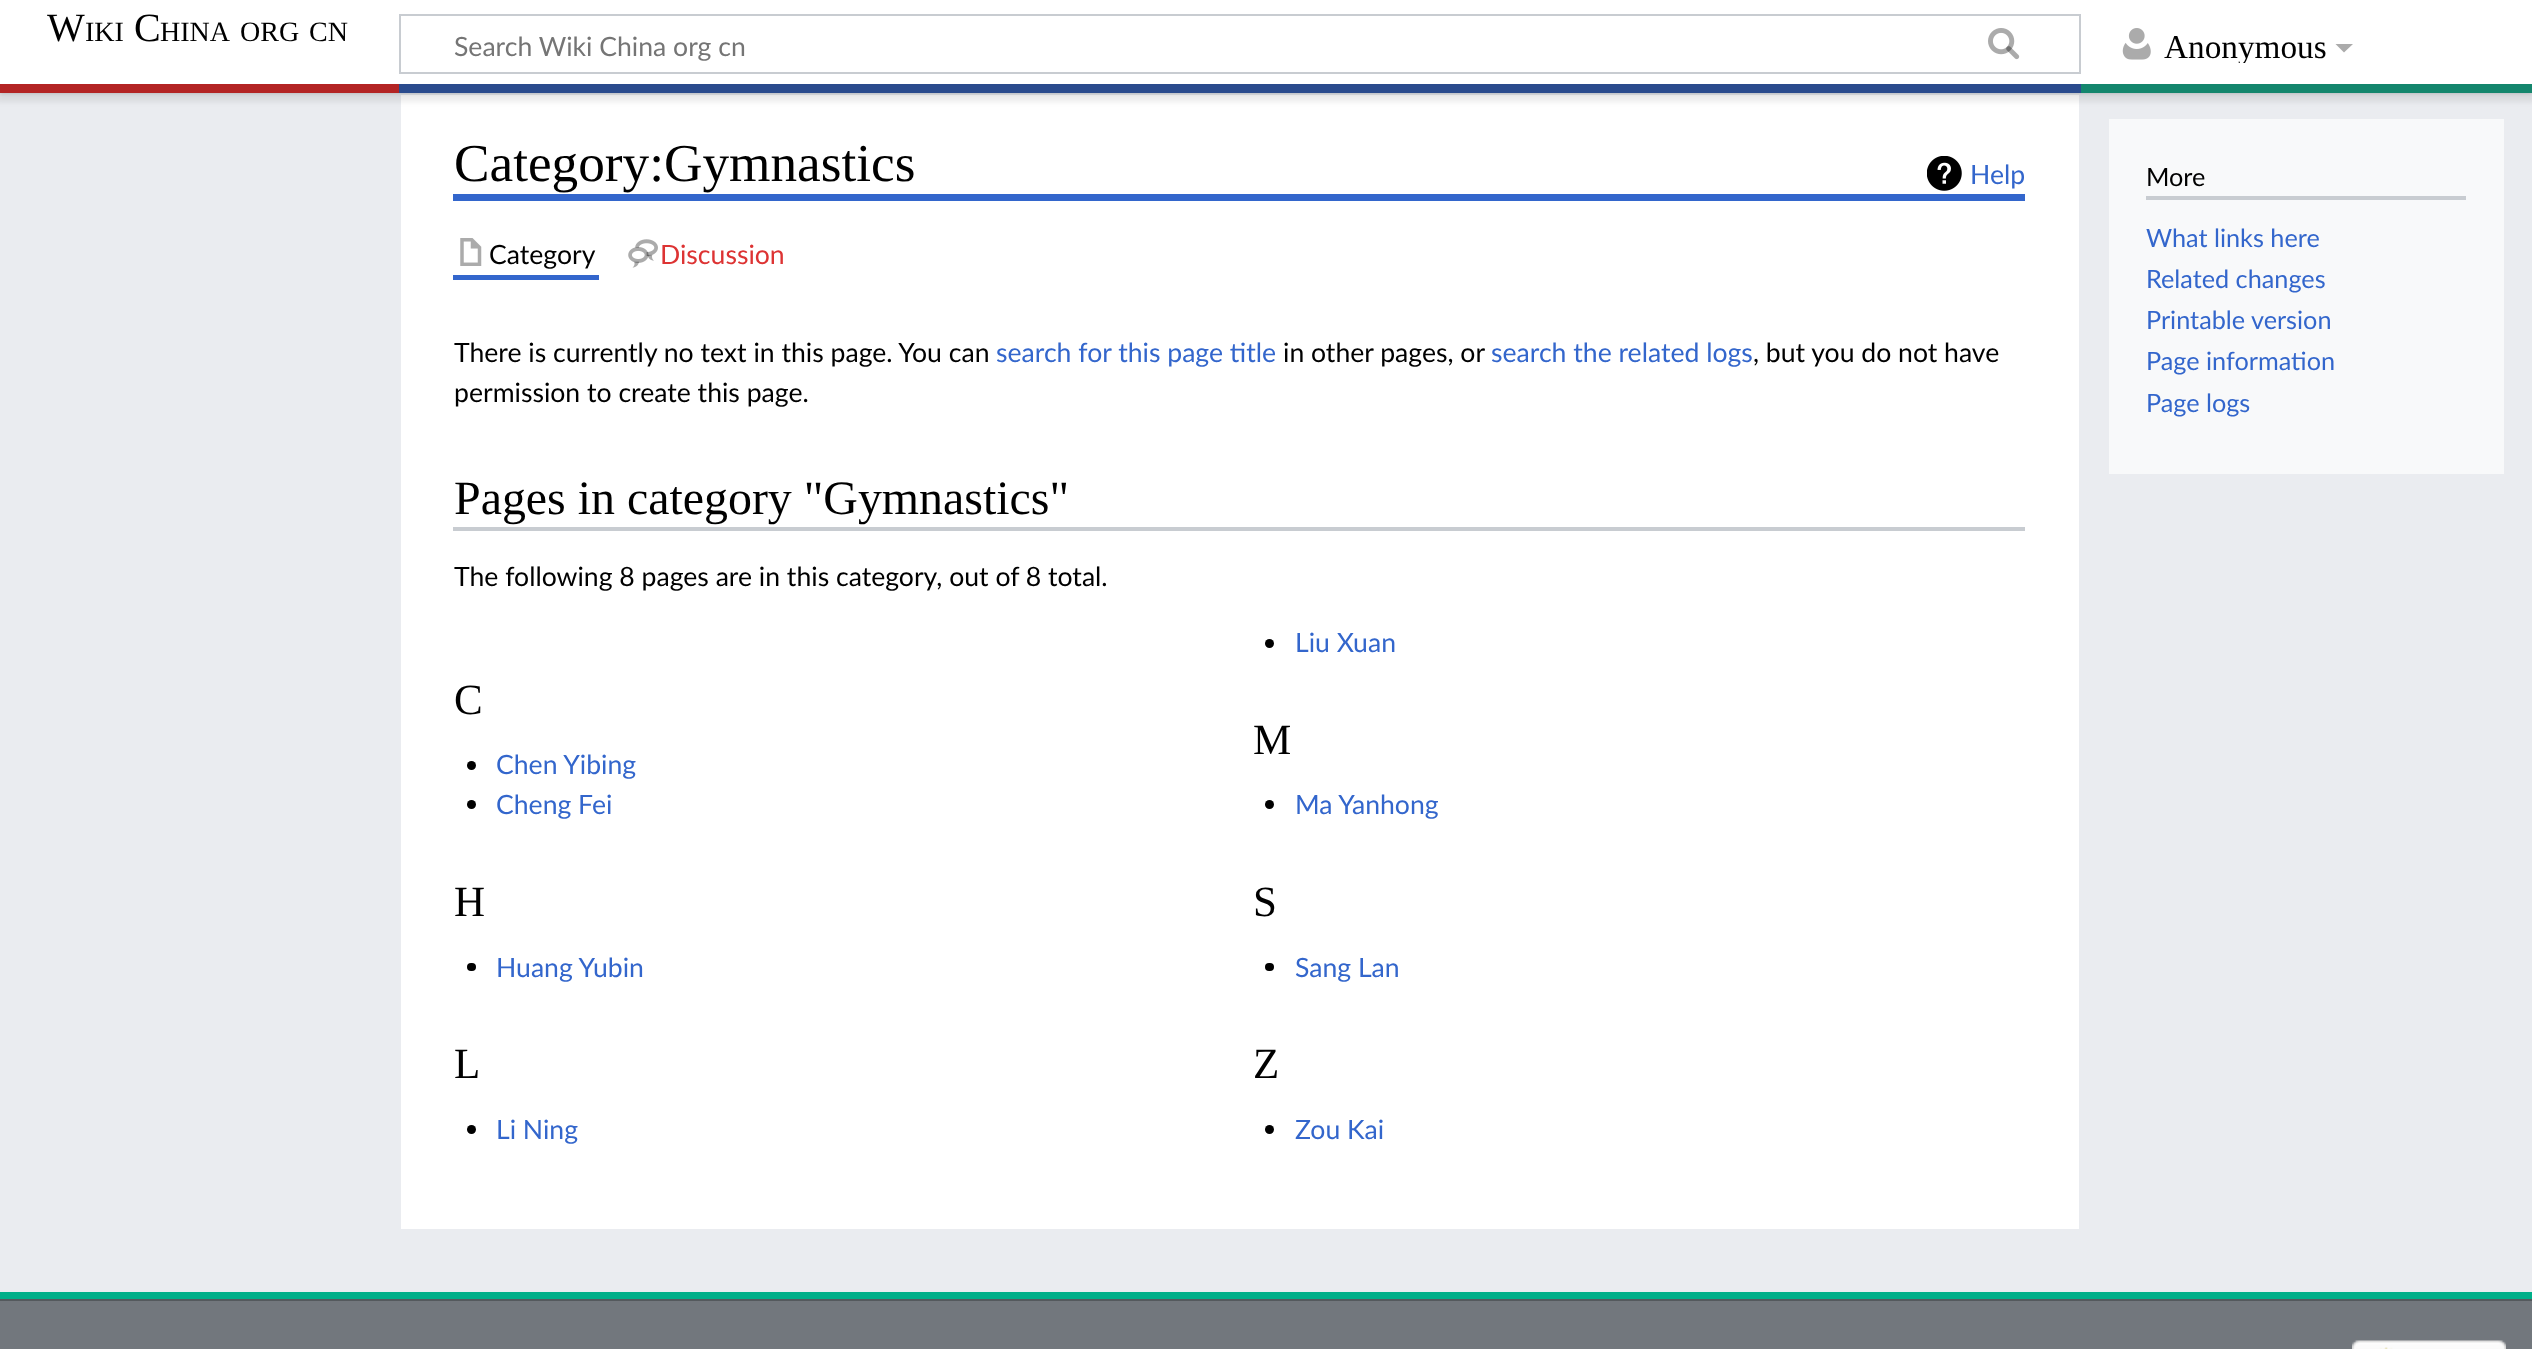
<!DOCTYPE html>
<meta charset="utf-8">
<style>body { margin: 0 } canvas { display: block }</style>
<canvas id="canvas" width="2532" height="1349"></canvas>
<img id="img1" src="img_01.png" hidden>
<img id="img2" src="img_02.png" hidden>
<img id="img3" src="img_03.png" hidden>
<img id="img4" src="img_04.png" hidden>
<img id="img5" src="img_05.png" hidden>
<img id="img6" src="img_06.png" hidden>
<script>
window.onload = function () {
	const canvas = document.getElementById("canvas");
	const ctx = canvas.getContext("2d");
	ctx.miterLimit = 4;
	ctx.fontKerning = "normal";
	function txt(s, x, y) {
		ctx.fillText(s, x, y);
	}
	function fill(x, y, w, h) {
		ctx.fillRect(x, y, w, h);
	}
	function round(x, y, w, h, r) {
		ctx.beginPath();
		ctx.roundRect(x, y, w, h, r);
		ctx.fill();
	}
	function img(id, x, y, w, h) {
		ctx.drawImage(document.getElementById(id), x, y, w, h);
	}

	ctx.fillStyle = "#72777D";
	fill(0, 0, 2532, 1349);
	ctx.fillStyle = "#EAECF0";
	fill(0, 93, 2532, 1199);
	ctx.fillStyle = "#FFFFFF";
	fill(401, 95, 1678, 1134);
	ctx.fillStyle = "rgba(0, 0, 0, 0.2)";
	ctx.filter = "blur(2px)";
	ctx.beginPath();
	ctx.rect(0, 84, 2532, 9);
	ctx.fill();
	ctx.filter = "none";
	ctx.fillStyle = "rgba(0, 0, 0, 0.07)";
	ctx.filter = "blur(2.5px)";
	ctx.beginPath();
	ctx.rect(-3, 86, 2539, 16);
	ctx.fill();
	ctx.filter = "none";
	ctx.fillStyle = "#FFFFFF";
	fill(0, 0, 2532, 84);
	ctx.strokeStyle = "#C8CCD1";
	ctx.lineWidth = 2;
	ctx.strokeRect(400, 15, 1680, 58);
	img("img1", 1988, 28, 32, 32);
	img("img2", 2122, 28, 29, 32);
	ctx.fillStyle = "#ABABAB";
	ctx.beginPath();
	ctx.moveTo(2353, 44);
	ctx.lineTo(2344, 52.5);
	ctx.lineTo(2335.5, 44);
	ctx.closePath();
	ctx.fill();
	ctx.fillStyle = "#B32424";
	fill(0, 84, 399, 9);
	ctx.fillStyle = "#2A4B8D";
	fill(399, 84, 1682, 9);
	ctx.fillStyle = "#14866D";
	fill(2081, 84, 451, 9);
	ctx.fillStyle = "#00AF89";
	fill(0, 1292, 2532, 7);
	ctx.fillStyle = "#3366CC";
	fill(453, 194, 1572, 7);
	img("img3", 1927, 156, 35, 35);
	fill(453, 275, 146, 5);
	img("img4", 460, 238, 22, 28);
	img("img5", 628, 239, 30, 29);
	ctx.fillStyle = "#C8CCD1";
	fill(453, 527, 1572, 4);
	ctx.fillStyle = "#000000";
	ctx.beginPath();
	ctx.arc(1269.5, 643.5, 4.5, 0, Math.PI * 2);
	ctx.fill();
	ctx.beginPath();
	ctx.arc(471.5, 1129.5, 4.5, 0, Math.PI * 2);
	ctx.fill();
	ctx.beginPath();
	ctx.arc(471.5, 765.5, 4.5, 0, Math.PI * 2);
	ctx.fill();
	ctx.beginPath();
	ctx.arc(471.5, 804.5, 4.5, 0, Math.PI * 2);
	ctx.fill();
	ctx.beginPath();
	ctx.arc(1269.5, 804.5, 4.5, 0, Math.PI * 2);
	ctx.fill();
	round(467, 963, 9, 8, 4);
	round(1265, 963, 9, 8, 4);
	ctx.beginPath();
	ctx.arc(1269.5, 1129.5, 4.5, 0, Math.PI * 2);
	ctx.fill();
	ctx.fillStyle = "#F8F9FA";
	fill(2109, 119, 395, 355);
	ctx.fillStyle = "#C8CCD1";
	fill(2146, 196, 320, 4);
	ctx.fillStyle = "#54595D";
	fill(0, 1299, 2532, 2);
	img("img6", 2352, 1340, 154, 9);
	ctx.font = "40px Liberation Serif";
	ctx.fillStyle = "#000000";
	txt("W", 47, 41);
	ctx.font = "28px Liberation Serif";
	txt("IKI", 85, 41);
	ctx.font = "40px Liberation Serif";
	txt("C", 134, 41);
	ctx.font = "28px Liberation Serif";
	txt("HINA", 160, 41);
	txt("ORG", 240, 41);
	txt("CN", 309, 41);
	ctx.font = "26.6px Lato";
	ctx.fillStyle = "#757575";
	txt("Search Wiki China org cn", 454, 56);
	ctx.save();
	ctx.beginPath();
	ctx.rect(2163, 30, 163, 33);
	ctx.clip();
	ctx.font = "33.25px Liberation Serif";
	ctx.fillStyle = "#000000";
	txt("Anonymous", 2164, 58);
	ctx.restore();
	ctx.font = "53.25px Liberation Serif";
	ctx.fillStyle = "#000000";
	txt("Category:Gymnastics", 454, 181);
	ctx.font = "26.6px Lato";
	ctx.fillStyle = "#3366CC";
	txt("Help", 1970, 184);
	ctx.fillStyle = "#000000";
	txt("Category", 489, 264);
	ctx.fillStyle = "#DD3333";
	txt("Discussion", 660, 264);
	ctx.fillStyle = "#000000";
	txt("There is currently no text in this page. You can", 454, 362);
	ctx.fillStyle = "#3366CC";
	txt("search for this page title", 996, 362);
	ctx.fillStyle = "#000000";
	txt("in other pages, or", 1283, 362);
	ctx.fillStyle = "#3366CC";
	txt("search the related logs", 1491, 362);
	ctx.fillStyle = "#000000";
	txt(", but you do not have", 1753, 362);
	txt("permission to create this page.", 454, 402);
	ctx.font = "47.9px Liberation Serif";
	txt("Pages in category \"Gymnastics\"", 454, 514);
	ctx.font = "26.6px Lato";
	txt("The following 8 pages are in this category, out of 8 total.", 454, 586);
	ctx.font = "43px Liberation Serif";
	txt("L", 454, 1078);
	ctx.font = "26.6px Lato";
	ctx.fillStyle = "#3366CC";
	txt("Liu Xuan", 1295, 652);
	txt("Li Ning", 496, 1139);
	ctx.font = "43px Liberation Serif";
	ctx.fillStyle = "#000000";
	txt("C", 454, 714);
	ctx.font = "26.6px Lato";
	ctx.fillStyle = "#3366CC";
	txt("Chen Yibing", 496, 774);
	txt("Cheng Fei", 496, 814);
	ctx.font = "43px Liberation Serif";
	ctx.fillStyle = "#000000";
	txt("M", 1253, 754);
	ctx.font = "26.6px Lato";
	ctx.fillStyle = "#3366CC";
	txt("Ma Yanhong", 1295, 814);
	ctx.font = "43px Liberation Serif";
	ctx.fillStyle = "#000000";
	txt("H", 454, 916);
	ctx.font = "26.6px Lato";
	ctx.fillStyle = "#3366CC";
	txt("Huang Yubin", 496, 977);
	ctx.font = "43px Liberation Serif";
	ctx.fillStyle = "#000000";
	txt("S", 1253, 916);
	ctx.font = "26.6px Lato";
	ctx.fillStyle = "#3366CC";
	txt("Sang Lan", 1295, 977);
	ctx.font = "43px Liberation Serif";
	ctx.fillStyle = "#000000";
	txt("Z", 1253, 1078);
	ctx.font = "26.6px Lato";
	ctx.fillStyle = "#3366CC";
	txt("Zou Kai", 1295, 1139);
	ctx.font = "25.25px Lato";
	ctx.fillStyle = "#000000";
	txt("More", 2146, 186);
	ctx.fillStyle = "#3366CC";
	txt("What links here", 2146, 247);
	txt("Related changes", 2146, 288);
	txt("Printable version", 2146, 329);
	txt("Page information", 2146, 370);
	txt("Page logs", 2146, 412);
};
</script>
